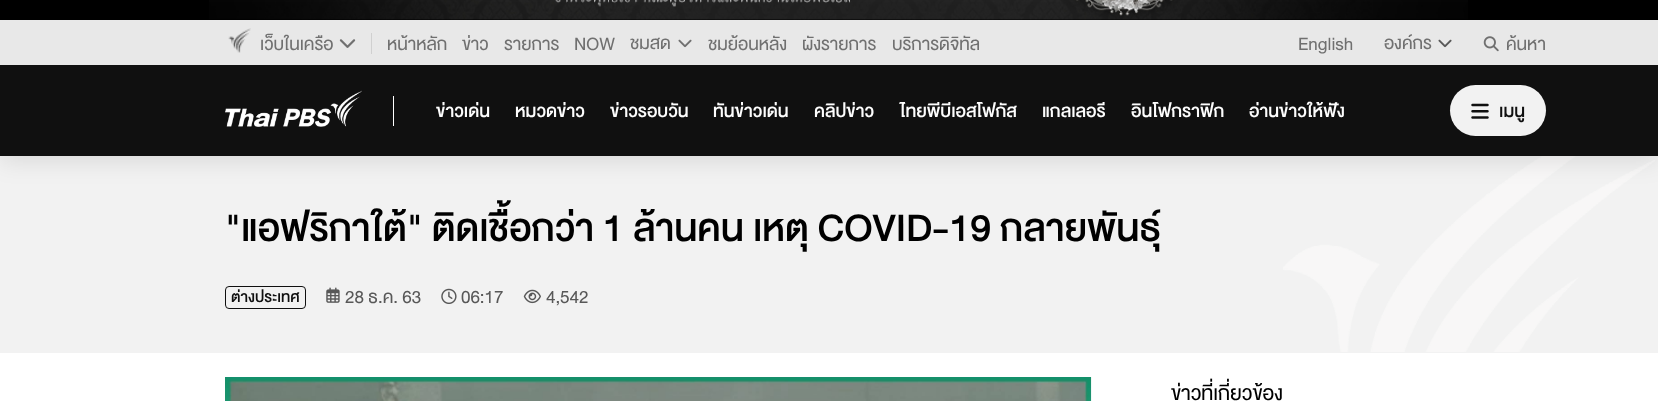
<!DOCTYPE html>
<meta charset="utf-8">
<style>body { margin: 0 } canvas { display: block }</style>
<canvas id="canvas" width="1658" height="401"></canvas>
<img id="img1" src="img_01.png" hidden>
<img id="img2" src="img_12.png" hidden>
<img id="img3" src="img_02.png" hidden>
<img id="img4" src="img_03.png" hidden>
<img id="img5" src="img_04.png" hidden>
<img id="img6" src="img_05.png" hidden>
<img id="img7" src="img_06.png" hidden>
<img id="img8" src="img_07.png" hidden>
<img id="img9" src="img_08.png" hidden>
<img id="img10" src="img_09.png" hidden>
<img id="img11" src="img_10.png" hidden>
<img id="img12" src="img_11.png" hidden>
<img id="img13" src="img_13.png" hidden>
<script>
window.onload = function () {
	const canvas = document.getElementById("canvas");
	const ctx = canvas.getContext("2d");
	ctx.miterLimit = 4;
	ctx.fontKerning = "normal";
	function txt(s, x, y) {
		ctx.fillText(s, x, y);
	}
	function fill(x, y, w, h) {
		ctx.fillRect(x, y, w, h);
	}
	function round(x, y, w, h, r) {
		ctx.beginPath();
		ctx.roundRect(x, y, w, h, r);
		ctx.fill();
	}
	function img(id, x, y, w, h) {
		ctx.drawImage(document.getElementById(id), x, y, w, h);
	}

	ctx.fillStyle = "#FFFFFF";
	fill(0, 0, 1658, 401);
	ctx.fillStyle = "#000000";
	fill(0, 0, 1658, 20);
	img("img1", 209, 0, 1259, 20);
	ctx.fillStyle = "#F2F2F2";
	fill(0, 156, 1658, 197);
	img("img2", 1283, 156, 372, 196);
	ctx.fillStyle = "rgba(0, 0, 0, 0.1)";
	ctx.filter = "blur(12.5px)";
	ctx.beginPath();
	ctx.rect(0, 25, 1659, 136);
	ctx.fill();
	ctx.filter = "none";
	ctx.fillStyle = "#E8E8E8";
	fill(0, 20, 1658, 45);
	img("img3", 228, 28, 23, 25);
	img("img4", 339, 39, 17, 9);
	ctx.fillStyle = "#D0D0D0";
	fill(371, 33, 1, 21);
	img("img5", 678, 39, 14, 9);
	img("img6", 1438, 39, 14, 9);
	img("img7", 1483, 36, 16, 16);
	ctx.fillStyle = "#101010";
	fill(0, 65, 1658, 91);
	img("img8", 225, 90, 137, 37);
	ctx.fillStyle = "#FFFFFF";
	fill(393, 96, 1, 30);
	ctx.fillStyle = "#F2F2F2";
	round(1450, 85, 96, 51, 25.5);
	img("img9", 1471, 103, 18, 16);
	ctx.beginPath();
	ctx.roundRect(225.5, 286.5, 80, 22, 3.5);
	ctx.strokeStyle = "#101010";
	ctx.stroke();
	img("img10", 326, 287, 14, 16);
	img("img11", 441, 288, 16, 16);
	img("img12", 523, 289, 18, 15);
	img("img13", 225, 377, 867, 24);
	ctx.font = "17.5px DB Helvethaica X";
	ctx.fillStyle = "#707070";
	txt("เว็บในเครือ", 260, 50);
	txt("หน้าหลัก", 387, 50);
	txt("ข่าว", 462, 50);
	txt("รายการ", 504, 50);
	txt("NOW", 574, 50);
	txt("ชมสด", 630, 49);
	txt("ชมย้อนหลัง", 708, 50);
	txt("ผังรายการ", 802, 50);
	txt("บริการดิจิทัล", 892, 50);
	txt("English", 1298, 50);
	txt("องค์กร", 1384, 49);
	txt("ค้นหา", 1506, 50);
	ctx.font = "italic 500 17.5px DB Helvethaica X";
	ctx.fillStyle = "#FDFDFD";
	txt("ข่าวเด่น", 436, 117);
	txt("หมวดข่าว", 515, 117);
	txt("ข่าวรอบวัน", 610, 117);
	txt("ทันข่าวเด่น", 713, 117);
	txt("คลิปข่าว", 814, 117);
	txt("ไทยพีบีเอสโฟกัส", 899, 117);
	txt("แกลเลอรี", 1042, 117);
	txt("อินโฟกราฟิก", 1131, 117);
	txt("อ่านข่าวให้ฟัง", 1249, 117);
	ctx.fillStyle = "#101010";
	txt("เมนู", 1499, 117);
	ctx.font = "italic 500 37.5px DB Helvethaica X";
	ctx.fillStyle = "#000000";
	txt("\"แอฟริกาใต้\" ติดเชื้อกว่า 1 ล้านคน เหตุ COVID-19 กลายพันธุ์", 225, 241);
	ctx.font = "italic 500 15px DB Helvethaica X";
	ctx.fillStyle = "#101010";
	txt("ต่างประเทศ", 231, 302);
	ctx.font = "17.5px DB Helvethaica X";
	ctx.fillStyle = "#585858";
	txt("28 ธ.ค. 63", 345, 303);
	txt("06:17", 461, 303);
	txt("4,542", 546, 303);
	ctx.font = "20px DB Helvethaica X";
	ctx.fillStyle = "#000000";
	txt("ข่าวที่เกี่ยวข้อง", 1171, 400);
};
</script>
